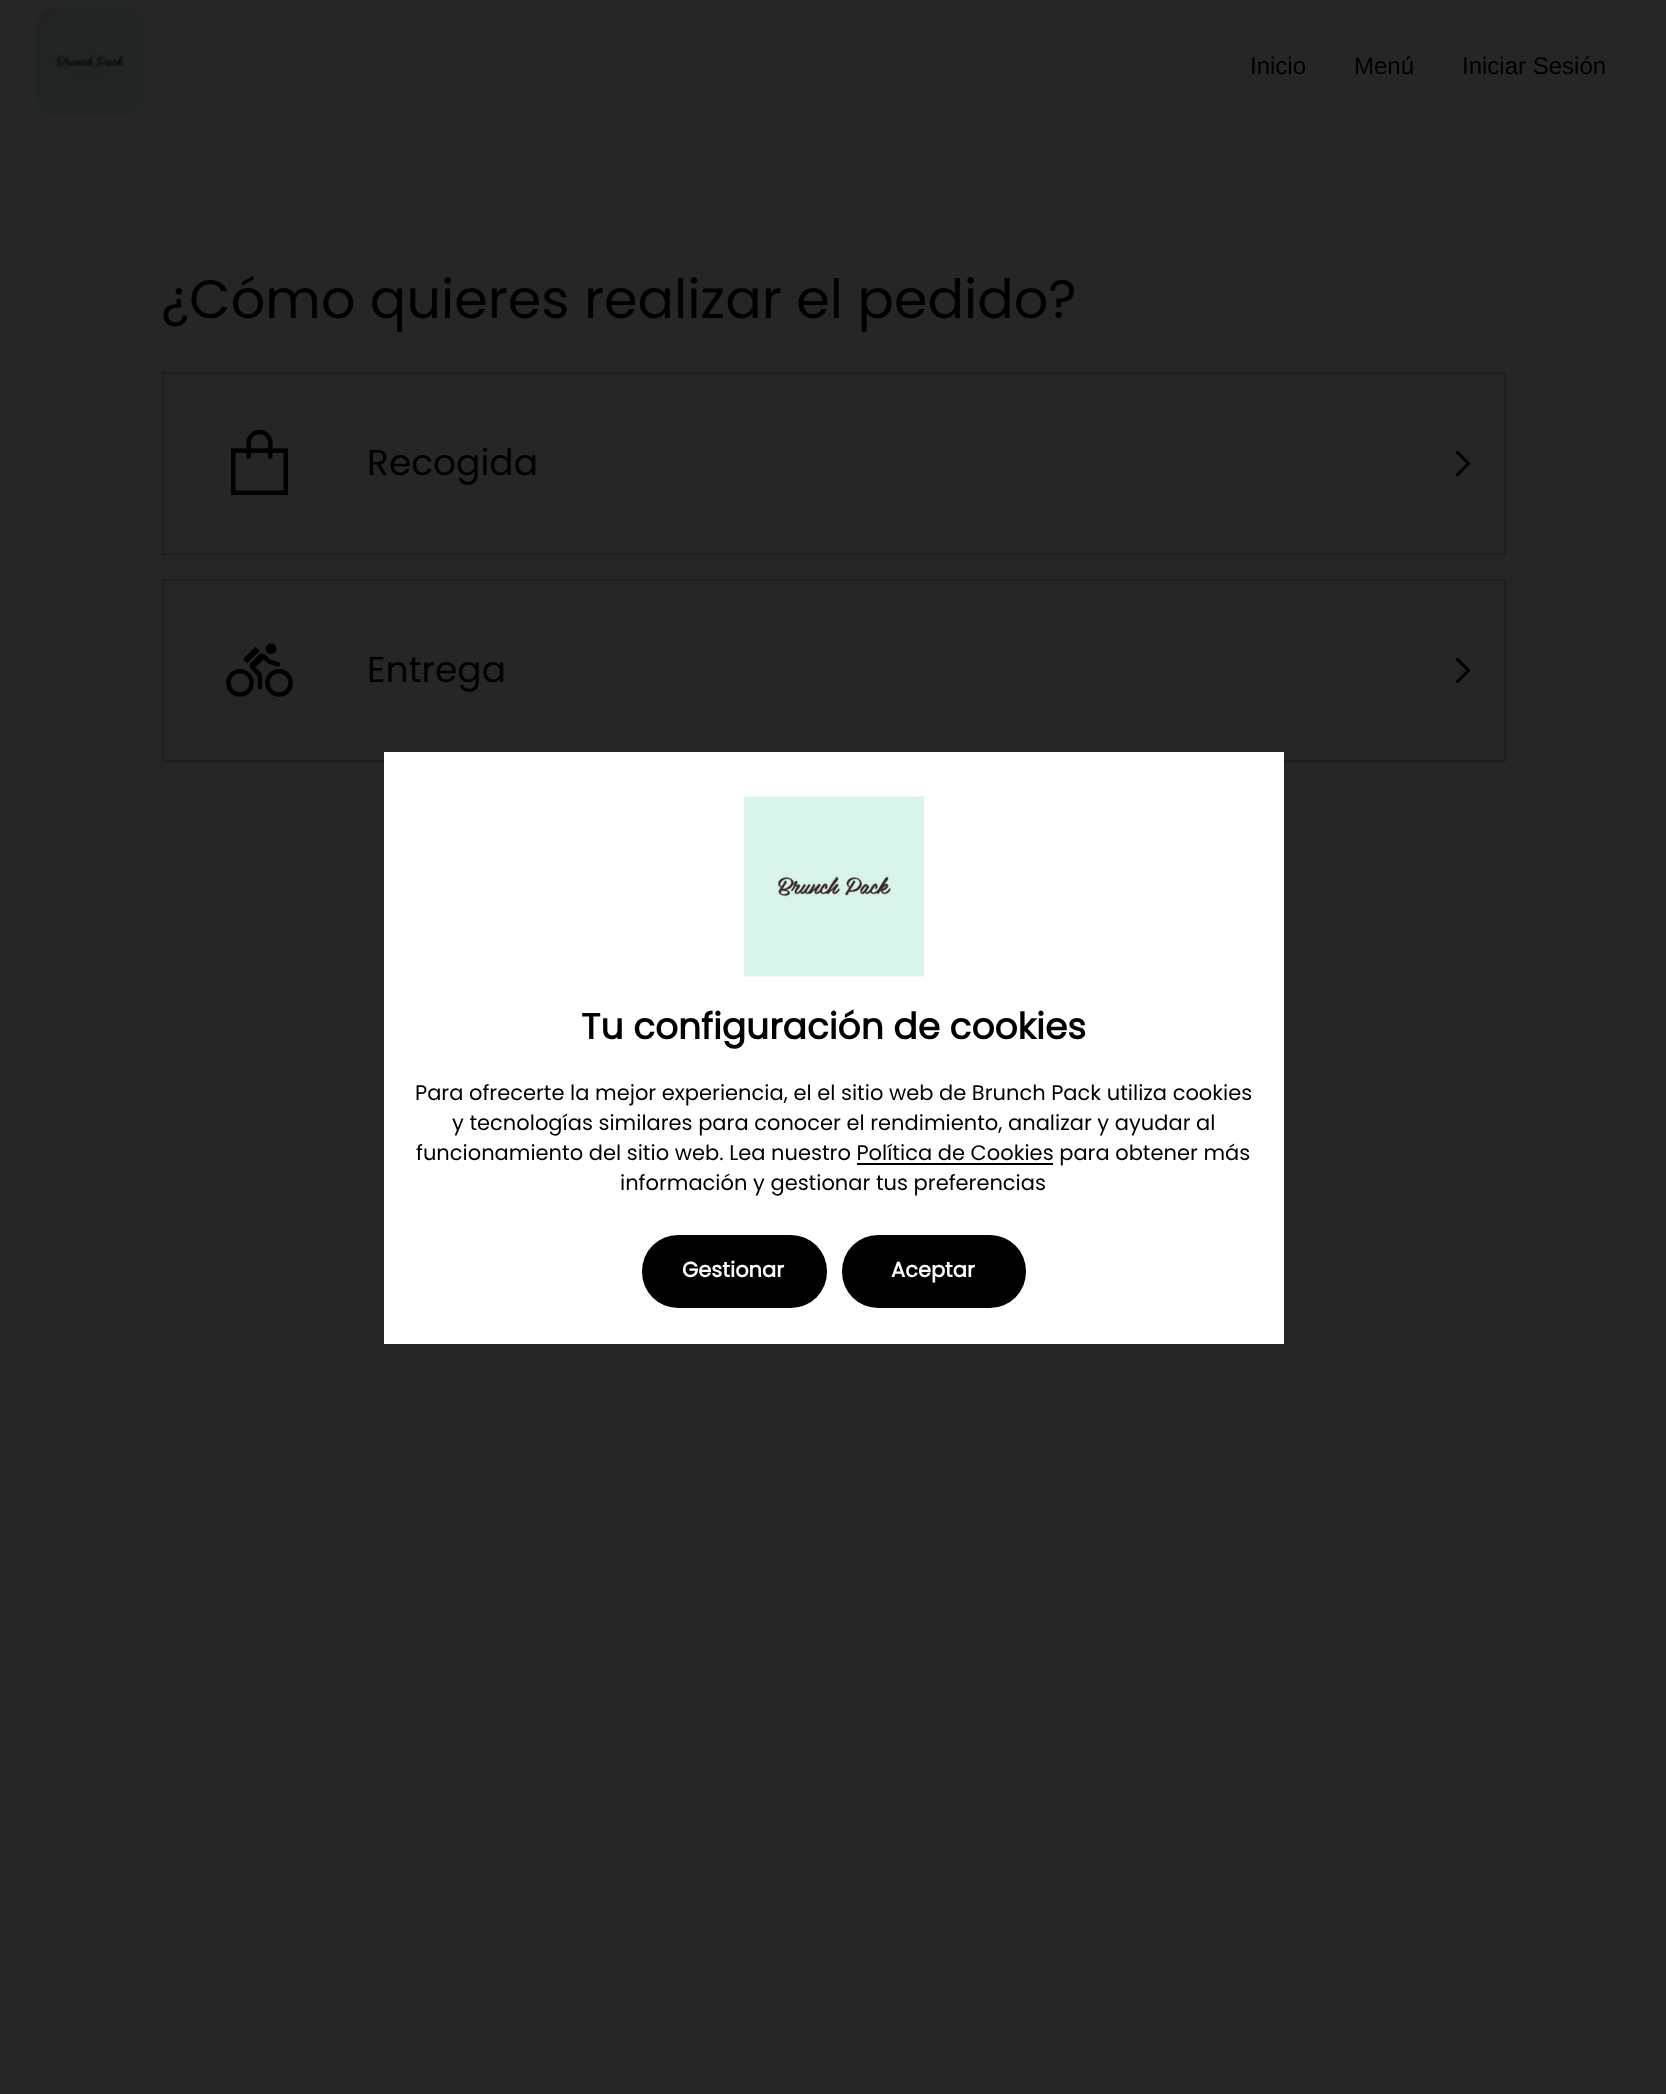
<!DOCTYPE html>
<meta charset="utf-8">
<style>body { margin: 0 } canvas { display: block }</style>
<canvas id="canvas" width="1666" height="2094"></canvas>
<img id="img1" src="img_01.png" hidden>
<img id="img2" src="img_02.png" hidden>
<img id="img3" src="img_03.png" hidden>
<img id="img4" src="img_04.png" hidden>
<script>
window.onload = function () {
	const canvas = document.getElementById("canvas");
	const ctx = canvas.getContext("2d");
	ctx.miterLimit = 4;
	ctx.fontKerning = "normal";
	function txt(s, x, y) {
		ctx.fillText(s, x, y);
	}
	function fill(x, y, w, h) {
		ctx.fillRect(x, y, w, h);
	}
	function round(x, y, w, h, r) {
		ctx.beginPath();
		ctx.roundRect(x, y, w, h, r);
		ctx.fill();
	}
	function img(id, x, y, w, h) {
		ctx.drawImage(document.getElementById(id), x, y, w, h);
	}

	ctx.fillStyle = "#262626";
	fill(0, 0, 1666, 2094);
	img("img1", 36, 7, 108, 109);
	ctx.strokeStyle = "#1F1F1F";
	ctx.lineWidth = 2;
	ctx.strokeRect(163, 373, 1342, 181);
	img("img2", 231, 429, 57, 66);
	ctx.beginPath();
	ctx.moveTo(1456.5, 451.5);
	ctx.lineTo(1468.5, 463.5);
	ctx.lineTo(1456.5, 475.5);
	ctx.strokeStyle = "#000000";
	ctx.lineWidth = 3;
	ctx.stroke();
	ctx.strokeStyle = "#1F1F1F";
	ctx.lineWidth = 2;
	ctx.strokeRect(163, 580, 1342, 181);
	img("img3", 226, 643, 67, 54);
	ctx.beginPath();
	ctx.moveTo(1456.5, 658.5);
	ctx.lineTo(1468.5, 670.5);
	ctx.lineTo(1456.5, 682.5);
	ctx.strokeStyle = "#000000";
	ctx.lineWidth = 3;
	ctx.stroke();
	ctx.fillStyle = "#FFFFFF";
	fill(384, 752, 900, 592);
	img("img4", 744, 796, 180, 181);
	ctx.fillStyle = "#000000";
	fill(857, 1163, 196, 2);
	round(642, 1235, 185, 73, 36);
	round(842, 1235, 184, 73, 36);
	ctx.font = "24px Liberation Sans";
	txt("Inicio", 1250, 74);
	txt("Menú", 1354, 74);
	txt("Iniciar Sesión", 1462, 74);
	ctx.font = "54px Poppins";
	txt("¿Cómo quieres realizar el pedido?", 161, 318);
	ctx.font = "36px Poppins";
	txt("Recogida", 367, 475);
	txt("Entrega", 367, 682);
	ctx.font = "bold 36px Poppins";
	txt("Tu configuración de cookies", 581, 1039);
	ctx.font = "21px Poppins";
	txt("Para ofrecerte la mejor experiencia, el el sitio web de Brunch Pack utiliza cookies", 415, 1100);
	txt("y tecnologías similares para conocer el rendimiento, analizar y ayudar al", 452, 1130);
	txt("funcionamiento del sitio web. Lea nuestro Política de Cookies para obtener más", 416, 1160);
	txt("información y gestionar tus preferencias", 620, 1190);
	ctx.font = "bold 21px Poppins";
	ctx.fillStyle = "#FFFFFF";
	txt("Gestionar", 682, 1277);
	txt("Aceptar", 891, 1277);
};
</script>
